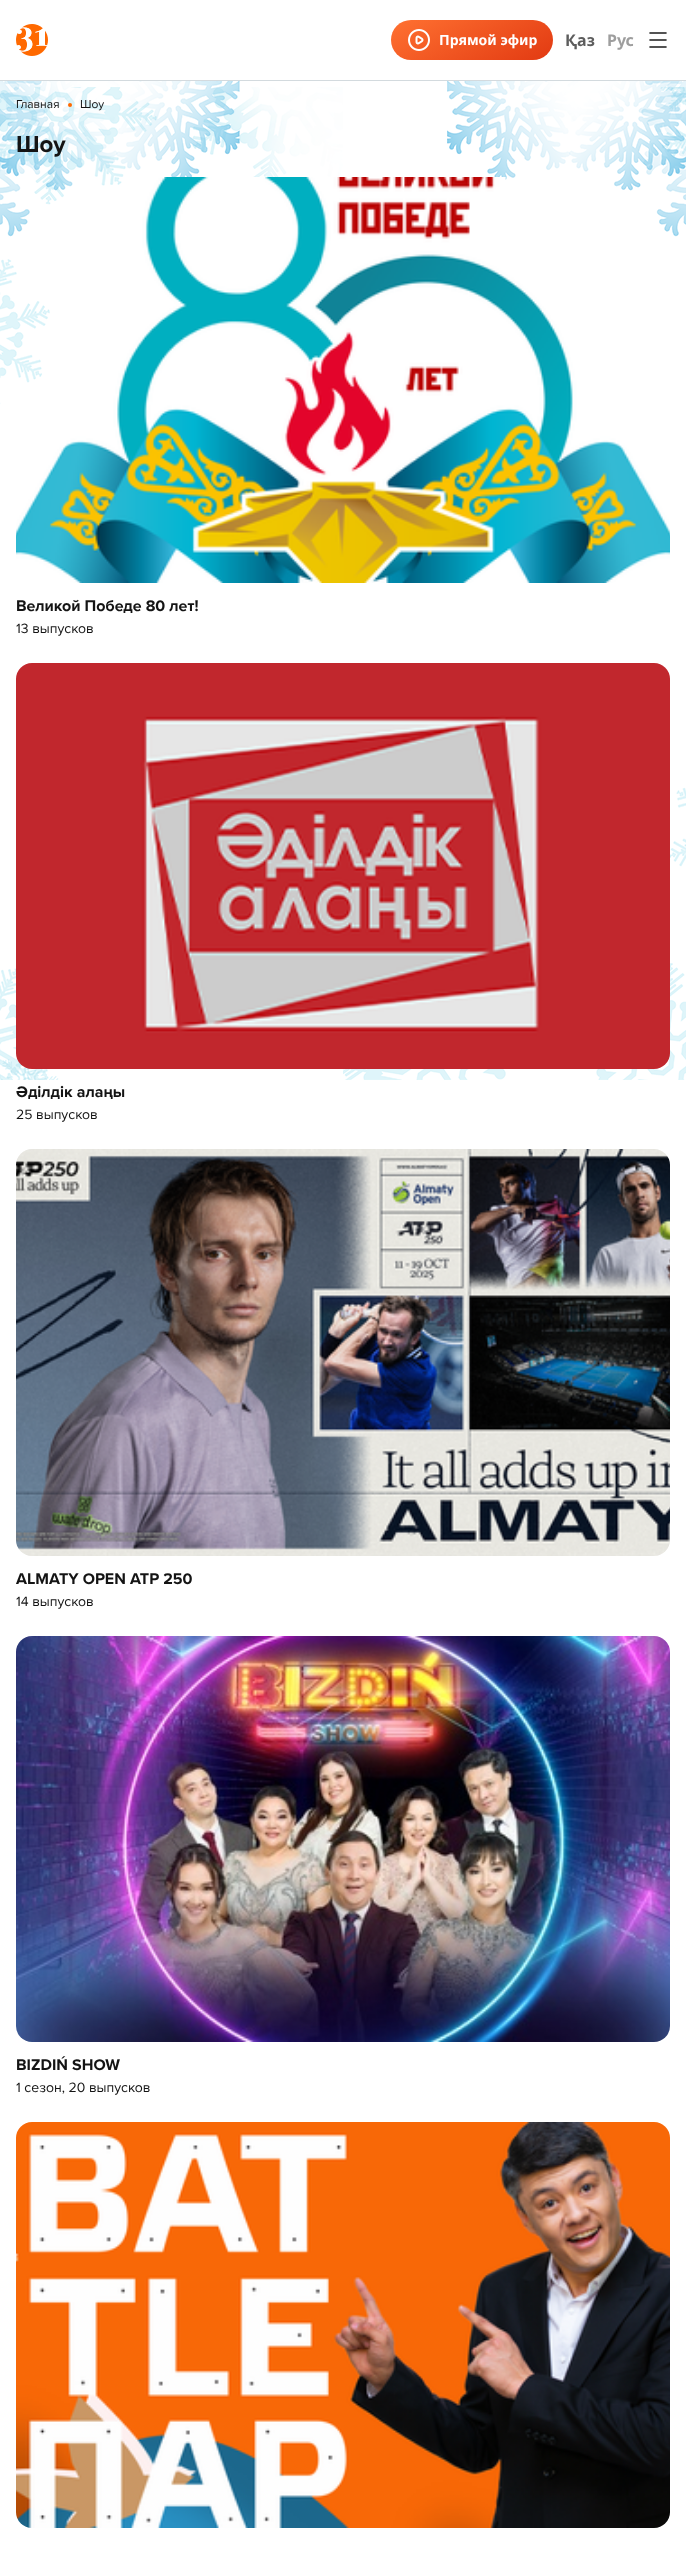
<!DOCTYPE html>
<meta charset="utf-8">
<style>body { margin: 0 } canvas { display: block }</style>
<canvas id="canvas" width="686" height="2552"></canvas>
<img id="img1" src="img_01.png" hidden>
<img id="img2" src="img_02.png" hidden>
<img id="img3" src="img_03.png" hidden>
<img id="img4" src="img_04.png" hidden>
<img id="img5" src="img_05.png" hidden>
<img id="img6" src="img_06.png" hidden>
<img id="img7" src="img_07.png" hidden>
<img id="img8" src="img_08.png" hidden>
<img id="img9" src="img_09.png" hidden>
<script>
window.onload = function () {
	const canvas = document.getElementById("canvas");
	const ctx = canvas.getContext("2d");
	ctx.miterLimit = 4;
	ctx.fontKerning = "normal";
	function txt(s, x, y) {
		ctx.fillText(s, x, y);
	}
	function fill(x, y, w, h) {
		ctx.fillRect(x, y, w, h);
	}
	function round(x, y, w, h, r) {
		ctx.beginPath();
		ctx.roundRect(x, y, w, h, r);
		ctx.fill();
	}
	function img(id, x, y, w, h) {
		ctx.drawImage(document.getElementById(id), x, y, w, h);
	}
	let gradient;

	ctx.fillStyle = "#FFFFFF";
	fill(0, 0, 686, 2552);
	img("img1", 0, 81, 686, 999);
	ctx.fillStyle = "#D3DADE";
	fill(0, 80, 686, 1);
	img("img2", 16, 24, 32, 32);
	gradient = ctx.createLinearGradient(443, -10, 501, 90);
	gradient.addColorStop(0, "#FF7131");
	gradient.addColorStop(1, "#E23A12");
	ctx.fillStyle = gradient;
	round(391, 20, 162, 40, 20);
	img("img3", 408, 29, 22, 22);
	img("img4", 649, 32, 18, 16);
	ctx.fillStyle = "#FF6900";
	ctx.beginPath();
	ctx.arc(70, 105, 2, 0, Math.PI * 2);
	ctx.fill();
	img("img5", 16, 177, 654, 406);
	img("img6", 16, 663, 654, 406);
	img("img7", 16, 1149, 654, 407);
	img("img8", 16, 1636, 654, 406);
	img("img9", 16, 2122, 654, 406);
	ctx.font = "bold 14px Noto Sans";
	ctx.fillStyle = "#FFFFFF";
	txt("Прямой эфир", 439, 45);
	ctx.font = "bold 16px Noto Sans";
	ctx.fillStyle = "#5D5D5D";
	txt("Қаз", 565, 46);
	ctx.fillStyle = "#9E9E9E";
	txt("Рус", 607, 46);
	ctx.font = "12px Proxima Nova";
	ctx.fillStyle = "#141414";
	txt("Главная", 16, 108);
	txt("Шоу", 80, 108);
	ctx.font = "bold 24px Proxima Nova";
	txt("Шоу", 16, 152);
	ctx.font = "bold 16px Proxima Nova";
	txt("Великой Победе 80 лет!", 16, 611);
	ctx.font = "14px Proxima Nova";
	txt("13 выпусков", 16, 633);
	ctx.font = "bold 16px Proxima Nova";
	txt("Әділдік алаңы", 16, 1097);
	ctx.font = "14px Proxima Nova";
	txt("25 выпусков", 16, 1119);
	ctx.font = "bold 16px Proxima Nova";
	txt("ALMATY OPEN ATP 250", 16, 1584);
	ctx.font = "14px Proxima Nova";
	txt("14 выпусков", 16, 1606);
	ctx.font = "bold 16px Proxima Nova";
	txt("BIZDIŃ SHOW", 16, 2070);
	ctx.font = "14px Proxima Nova";
	txt("1 сезон, 20 выпусков", 16, 2092);
};
</script>
